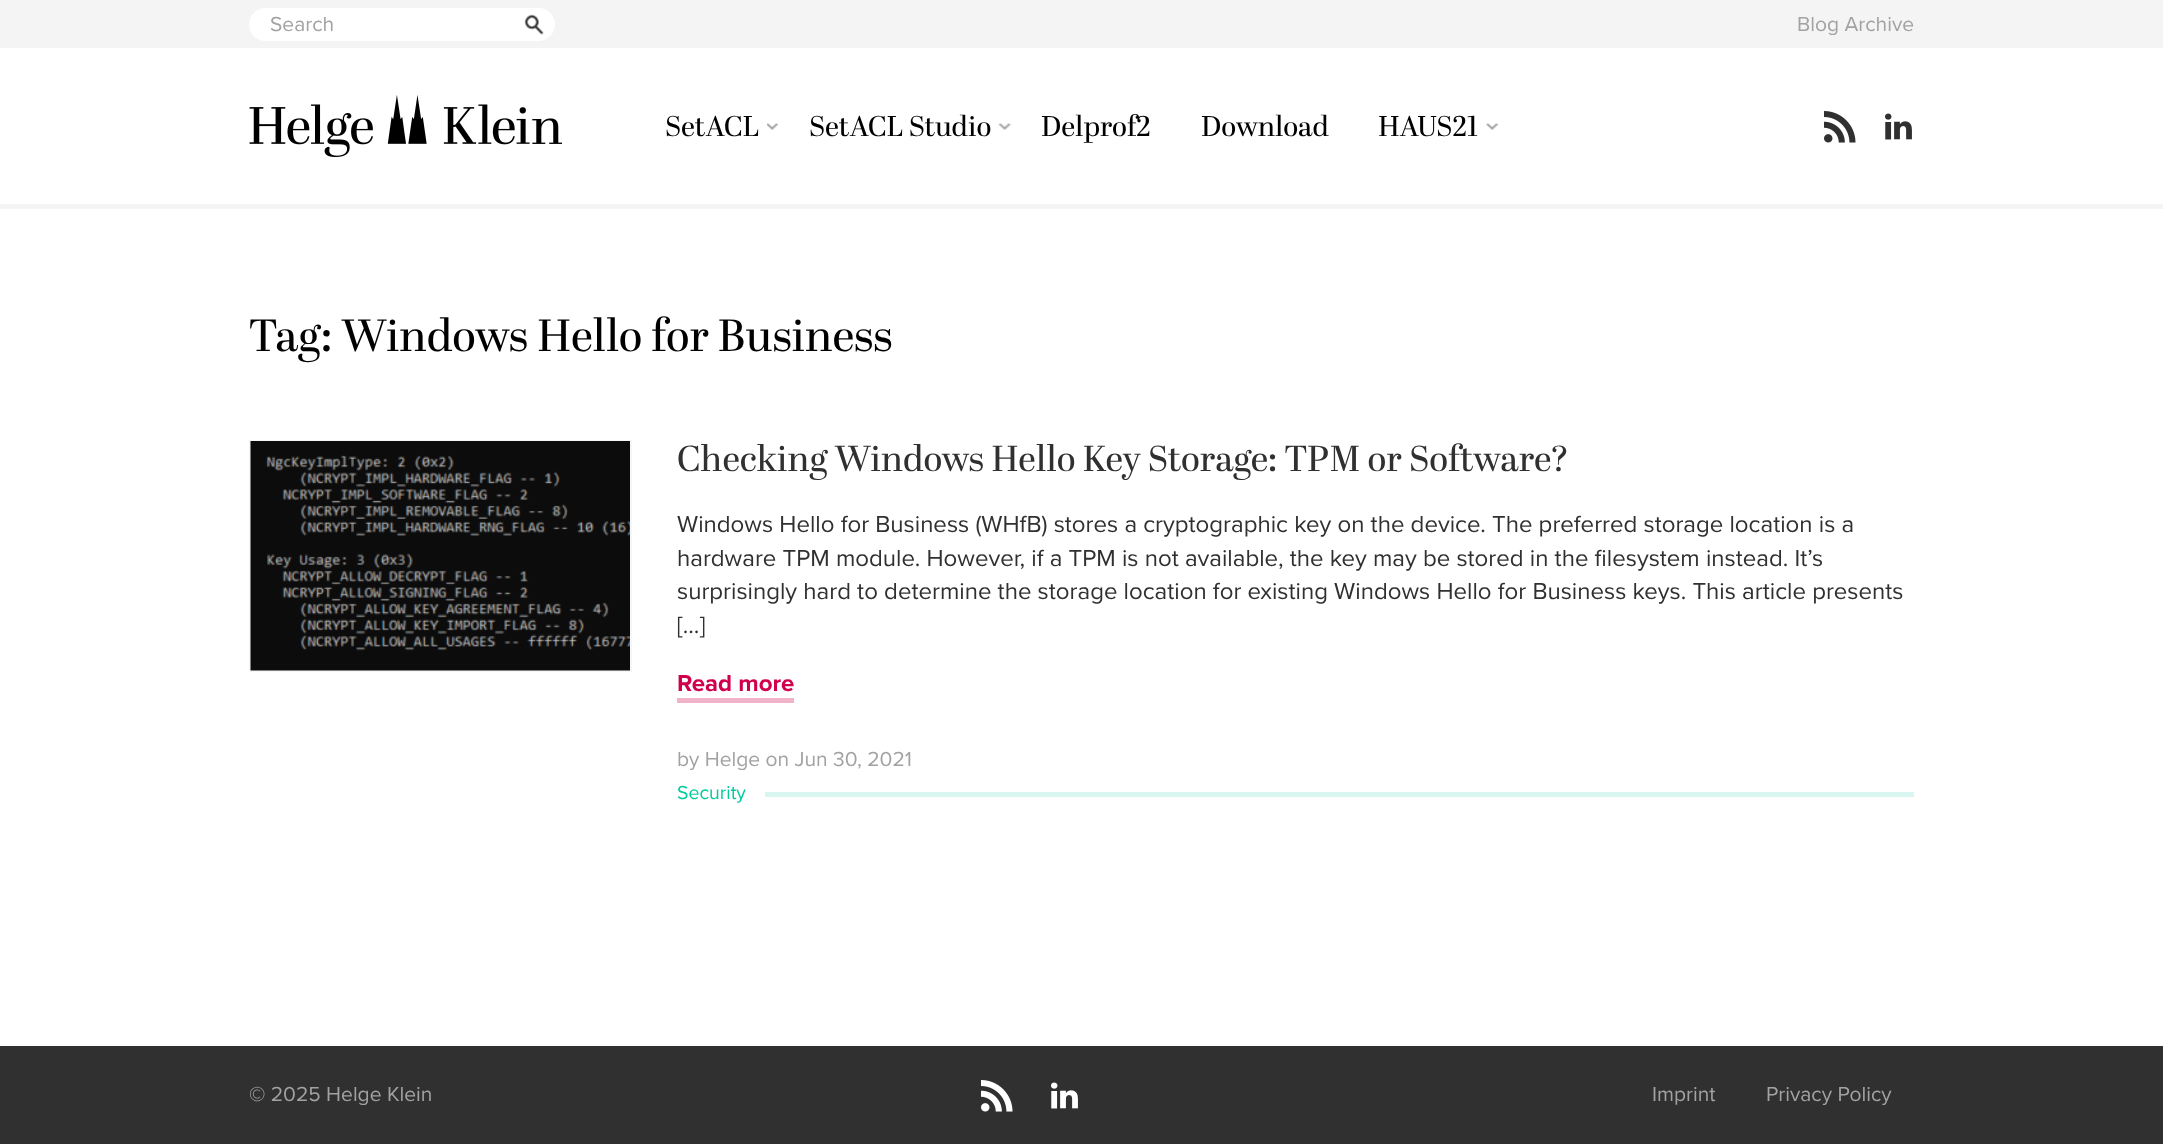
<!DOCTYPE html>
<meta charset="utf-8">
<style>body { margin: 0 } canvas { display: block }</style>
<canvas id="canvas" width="2163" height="1144"></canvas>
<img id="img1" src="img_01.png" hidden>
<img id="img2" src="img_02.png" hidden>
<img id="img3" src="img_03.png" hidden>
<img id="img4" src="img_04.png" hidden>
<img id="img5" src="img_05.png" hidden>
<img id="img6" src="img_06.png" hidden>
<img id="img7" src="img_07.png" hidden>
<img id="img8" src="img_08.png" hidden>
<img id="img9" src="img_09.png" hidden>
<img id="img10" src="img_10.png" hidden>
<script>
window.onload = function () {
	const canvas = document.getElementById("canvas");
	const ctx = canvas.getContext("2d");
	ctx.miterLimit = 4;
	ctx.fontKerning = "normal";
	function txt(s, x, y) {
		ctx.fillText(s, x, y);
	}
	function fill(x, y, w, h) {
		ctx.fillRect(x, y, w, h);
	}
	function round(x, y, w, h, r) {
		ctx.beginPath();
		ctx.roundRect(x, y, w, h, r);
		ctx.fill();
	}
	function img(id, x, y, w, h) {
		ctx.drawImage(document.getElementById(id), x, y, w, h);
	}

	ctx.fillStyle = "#FFFFFF";
	fill(0, 0, 2163, 1144);
	ctx.fillStyle = "#F4F4F4";
	fill(0, 204, 2163, 5);
	fill(0, 0, 2163, 48);
	ctx.fillStyle = "#FFFFFF";
	round(249, 8, 306, 33, 16.5);
	img("img1", 524, 14, 20, 21);
	img("img2", 249, 95, 313, 62);
	img("img3", 767, 123, 12, 7);
	img("img4", 998, 123, 14, 7);
	img("img5", 1486, 123, 13, 7);
	img("img6", 1824, 111, 32, 32);
	img("img7", 1885, 113, 27, 27);
	ctx.strokeStyle = "#F6F6F6";
	ctx.lineWidth = 2;
	ctx.strokeRect(250, 441, 381, 230);
	img("img8", 250, 441, 380, 230);
	ctx.fillStyle = "#F1B3CA";
	fill(677, 698, 117, 5);
	ctx.fillStyle = "#D9F7F0";
	fill(765, 792, 1149, 5);
	ctx.fillStyle = "#303030";
	fill(0, 1046, 2163, 98);
	img("img9", 981, 1080, 32, 32);
	img("img10", 1051, 1082, 27, 27);
	ctx.font = "21px Proxima Nova";
	ctx.fillStyle = "#A2A2A2";
	txt("Search", 270, 31);
	txt("Blog Archive", 1797, 31);
	ctx.font = "28.5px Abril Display";
	ctx.fillStyle = "#000000";
	txt("SetACL", 665, 136);
	txt("SetACL Studio", 809, 136);
	txt("Delprof2", 1041, 136);
	txt("Download", 1201, 136);
	txt("HAUS21", 1378, 136);
	ctx.font = "45px Abril Display";
	txt("Tag: Windows Hello for Business", 249, 351);
	ctx.font = "36px Abril Display";
	ctx.fillStyle = "#303030";
	txt("Checking Windows Hello Key Storage: TPM or Software?", 677, 471);
	ctx.font = "24px Proxima Nova";
	txt("Windows Hello for Business (WHfB) stores a cryptographic key on the device. The preferred storage location is a", 677, 532);
	txt("hardware TPM module. However, if a TPM is not available, the key may be stored in the filesystem instead. It’s", 677, 566);
	txt("surprisingly hard to determine the storage location for existing Windows Hello for Business keys. This article presents", 677, 599);
	txt("[…]", 677, 633);
	ctx.font = "bold 24px Proxima Nova";
	ctx.fillStyle = "#D1004D";
	txt("Read more", 677, 691);
	ctx.font = "21px Proxima Nova";
	ctx.fillStyle = "#A2A2A2";
	txt("by Helge on Jun 30, 2021", 677, 766);
	ctx.font = "19.5px Proxima Nova";
	ctx.fillStyle = "#00CC9E";
	txt("Security", 677, 799);
	ctx.font = "21px Proxima Nova";
	ctx.fillStyle = "#A2A2A2";
	txt("© 2025 Helge Klein", 249, 1101);
	txt("Imprint", 1652, 1101);
	txt("Privacy Policy", 1766, 1101);
};
</script>
